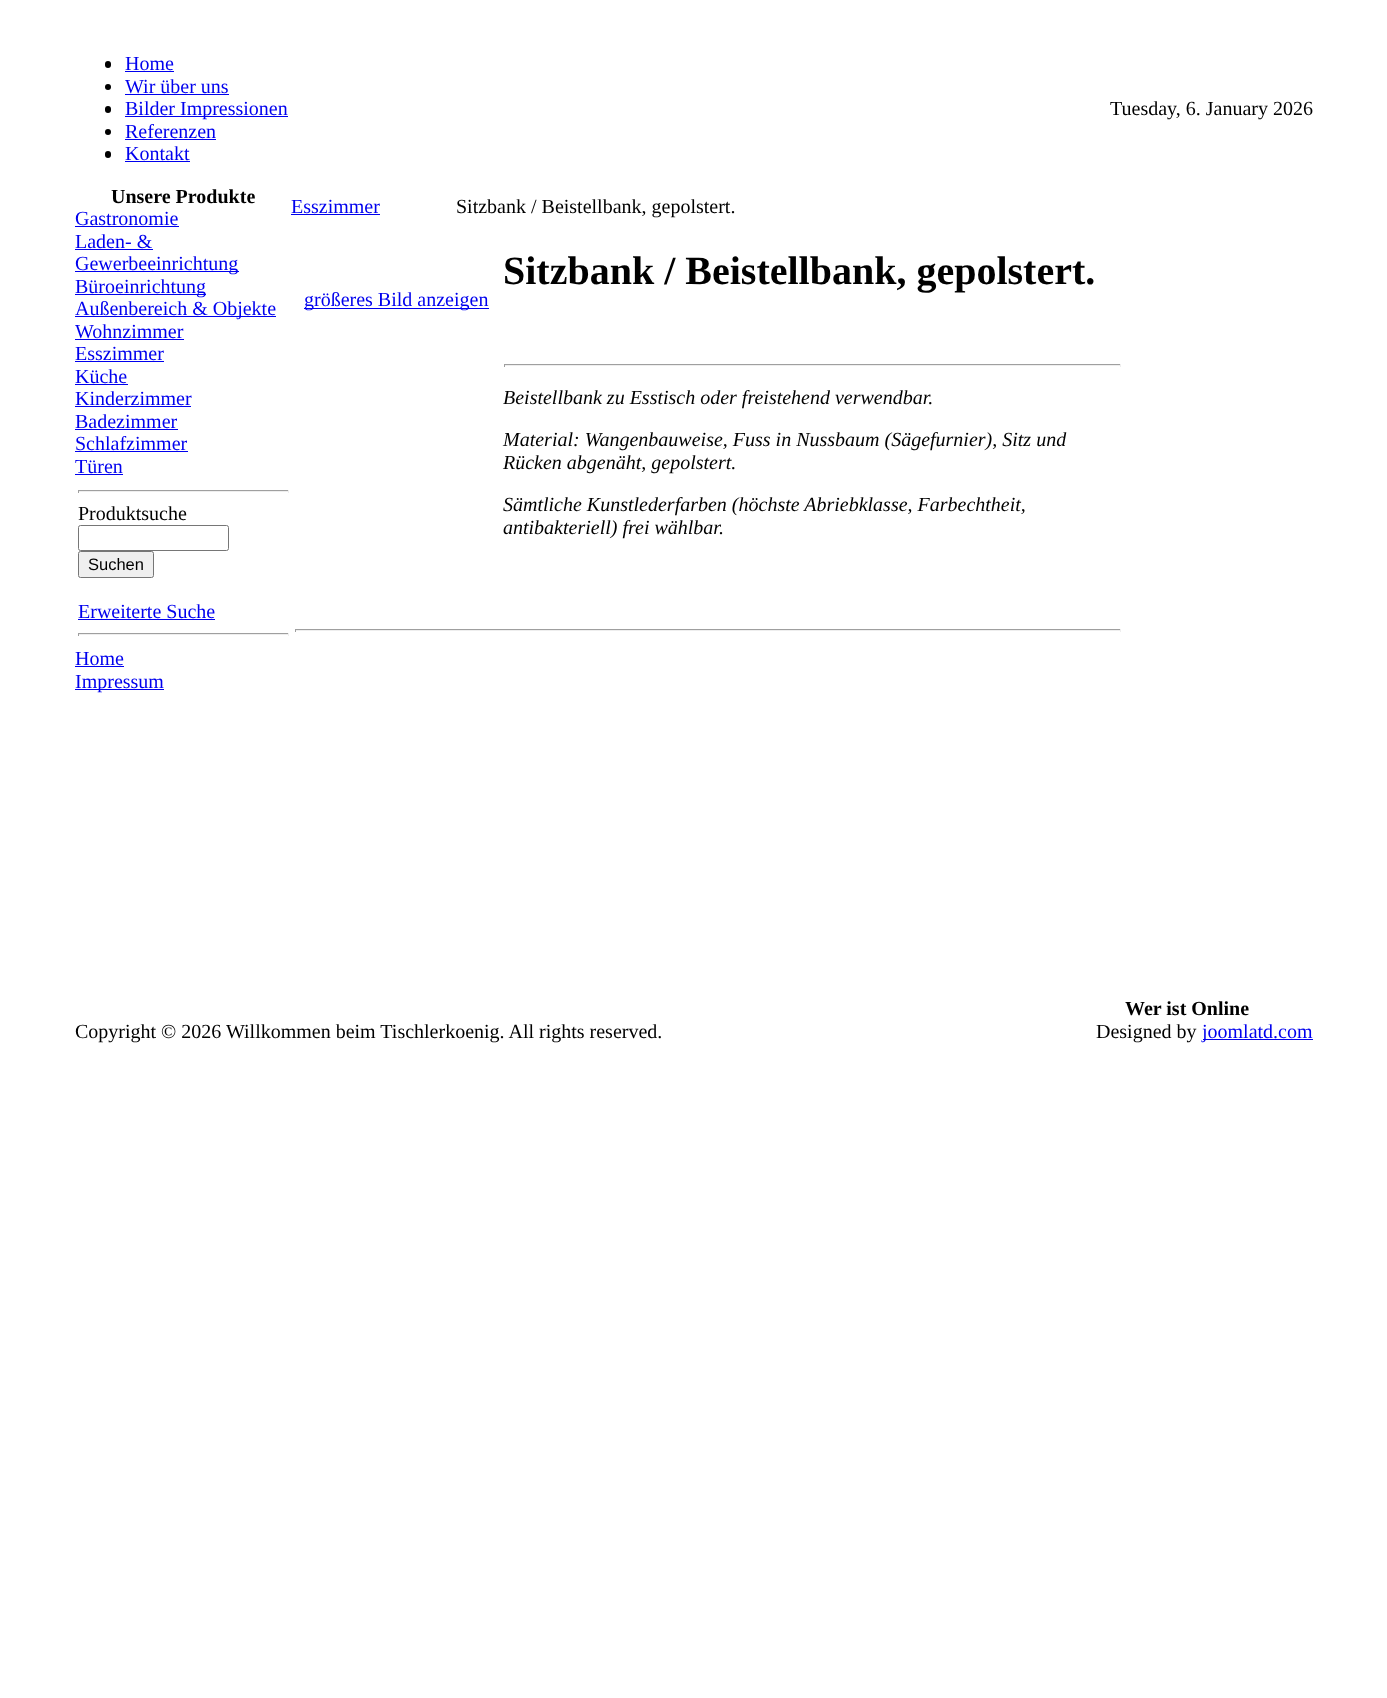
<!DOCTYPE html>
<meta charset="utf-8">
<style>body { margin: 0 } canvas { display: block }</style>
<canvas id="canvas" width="1387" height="1698"></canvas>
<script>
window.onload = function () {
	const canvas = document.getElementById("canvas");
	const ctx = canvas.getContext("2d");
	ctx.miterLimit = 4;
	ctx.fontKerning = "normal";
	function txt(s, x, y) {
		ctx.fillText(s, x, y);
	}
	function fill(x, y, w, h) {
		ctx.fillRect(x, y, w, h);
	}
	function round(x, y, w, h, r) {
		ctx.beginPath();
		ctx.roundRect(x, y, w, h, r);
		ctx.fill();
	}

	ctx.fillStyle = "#FFFFFF";
	fill(0, 0, 1387, 1698);
	ctx.fillStyle = "#000000";
	round(105, 61, 6, 7, 3);
	ctx.fillStyle = "#0000EE";
	fill(125, 71, 49, 1);
	ctx.fillStyle = "#000000";
	ctx.beginPath();
	ctx.arc(108, 87, 3, 0, Math.PI * 2);
	ctx.fill();
	ctx.fillStyle = "#0000EE";
	fill(125, 94, 104, 1);
	ctx.fillStyle = "#000000";
	round(105, 106, 6, 7, 3);
	ctx.fillStyle = "#0000EE";
	fill(125, 116, 163, 1);
	ctx.fillStyle = "#000000";
	ctx.beginPath();
	ctx.arc(108, 132, 3, 0, Math.PI * 2);
	ctx.fill();
	ctx.fillStyle = "#0000EE";
	fill(125, 139, 91, 1);
	ctx.fillStyle = "#000000";
	round(105, 151, 6, 7, 3);
	ctx.fillStyle = "#0000EE";
	fill(125, 161, 65, 1);
	fill(75, 226, 104, 1);
	fill(75, 249, 78, 1);
	fill(75, 271, 164, 1);
	fill(75, 294, 131, 1);
	fill(75, 316, 201, 1);
	fill(75, 339, 109, 1);
	fill(75, 361, 89, 1);
	fill(75, 384, 53, 1);
	fill(75, 406, 116, 1);
	fill(75, 429, 103, 1);
	fill(75, 451, 113, 1);
	fill(75, 474, 48, 1);
	ctx.fillStyle = "#9F9F9F";
	fill(78, 490, 211, 1);
	ctx.fillStyle = "#EEEEEE";
	fill(288, 490, 1, 3);
	fill(78, 491, 211, 1);
	ctx.fillStyle = "#9F9F9F";
	fill(78, 490, 1, 3);
	ctx.beginPath();
	ctx.roundRect(78.5, 525.5, 150, 25, 2);
	ctx.strokeStyle = "#767676";
	ctx.stroke();
	ctx.fillStyle = "#EFEFEF";
	ctx.beginPath();
	ctx.roundRect(78.5, 551.5, 75, 26, 2);
	ctx.fill();
	ctx.stroke();
	ctx.fillStyle = "#0000EE";
	fill(78, 619, 137, 1);
	ctx.fillStyle = "#9F9F9F";
	fill(78, 633, 211, 1);
	ctx.fillStyle = "#EEEEEE";
	fill(288, 633, 1, 3);
	fill(78, 634, 211, 1);
	ctx.fillStyle = "#9F9F9F";
	fill(78, 633, 1, 3);
	ctx.fillStyle = "#0000EE";
	fill(75, 666, 49, 1);
	fill(75, 689, 89, 1);
	fill(291, 214, 89, 1);
	fill(304, 308, 185, 1);
	ctx.fillStyle = "#9F9F9F";
	fill(504, 364, 617, 1);
	ctx.fillStyle = "#EEEEEE";
	fill(1120, 364, 1, 3);
	fill(504, 365, 617, 1);
	ctx.fillStyle = "#9F9F9F";
	fill(504, 364, 1, 3);
	fill(295, 629, 826, 1);
	ctx.fillStyle = "#EEEEEE";
	fill(1120, 629, 1, 3);
	fill(295, 630, 826, 1);
	ctx.fillStyle = "#9F9F9F";
	fill(295, 629, 1, 3);
	ctx.fillStyle = "#0000EE";
	fill(1203, 1039, 110, 1);
	ctx.font = "20px Liberation Serif";
	txt("Home", 125, 70);
	txt("Wir über uns", 125, 93);
	txt("Bilder Impressionen", 125, 115);
	txt("Referenzen", 125, 138);
	txt("Kontakt", 125, 160);
	ctx.fillStyle = "#000000";
	txt("Tuesday, 6. January 2026", 1110, 115);
	ctx.font = "bold 20px Liberation Serif";
	txt("Unsere Produkte", 111, 203);
	ctx.font = "20px Liberation Serif";
	ctx.fillStyle = "#0000EE";
	txt("Gastronomie", 75, 225);
	txt("Laden- &", 75, 248);
	txt("Gewerbeeinrichtung", 75, 270);
	txt("Büroeinrichtung", 75, 293);
	txt("Außenbereich & Objekte", 75, 315);
	txt("Wohnzimmer", 75, 338);
	txt("Esszimmer", 75, 360);
	txt("Küche", 75, 383);
	txt("Kinderzimmer", 75, 405);
	txt("Badezimmer", 75, 428);
	txt("Schlafzimmer", 75, 450);
	txt("Türen", 75, 473);
	ctx.fillStyle = "#000000";
	txt("Produktsuche", 78, 520);
	ctx.font = "16.5px Liberation Sans";
	txt("Suchen", 88, 570);
	ctx.font = "20px Liberation Serif";
	ctx.fillStyle = "#0000EE";
	txt("Erweiterte Suche", 78, 618);
	txt("Home", 75, 665);
	txt("Impressum", 75, 688);
	txt("Esszimmer", 291, 213);
	ctx.fillStyle = "#000000";
	txt("Sitzbank / Beistellbank, gepolstert.", 456, 213);
	ctx.font = "bold 40px Liberation Serif";
	txt("Sitzbank / Beistellbank, gepolstert.", 503, 284);
	ctx.font = "20px Liberation Serif";
	ctx.fillStyle = "#0000EE";
	txt("größeres Bild anzeigen", 304, 306);
	ctx.font = "italic 20px Liberation Serif";
	ctx.fillStyle = "#000000";
	txt("Beistellbank zu Esstisch oder freistehend verwendbar.", 503, 404);
	txt("Material: Wangenbauweise, Fuss in Nussbaum (Sägefurnier), Sitz und", 503, 446);
	txt("Rücken abgenäht, gepolstert.", 503, 469);
	txt("Sämtliche Kunstlederfarben (höchste Abriebklasse, Farbechtheit,", 503, 511);
	txt("antibakteriell) frei wählbar.", 503, 534);
	ctx.font = "bold 20px Liberation Serif";
	txt("Wer ist Online", 1125, 1015);
	ctx.font = "20px Liberation Serif";
	txt("Copyright © 2026 Willkommen beim Tischlerkoenig. All rights reserved.", 75, 1038);
	txt("Designed by", 1096, 1038);
	ctx.fillStyle = "#0000EE";
	txt("joomlatd.com", 1202, 1038);
};
</script>
